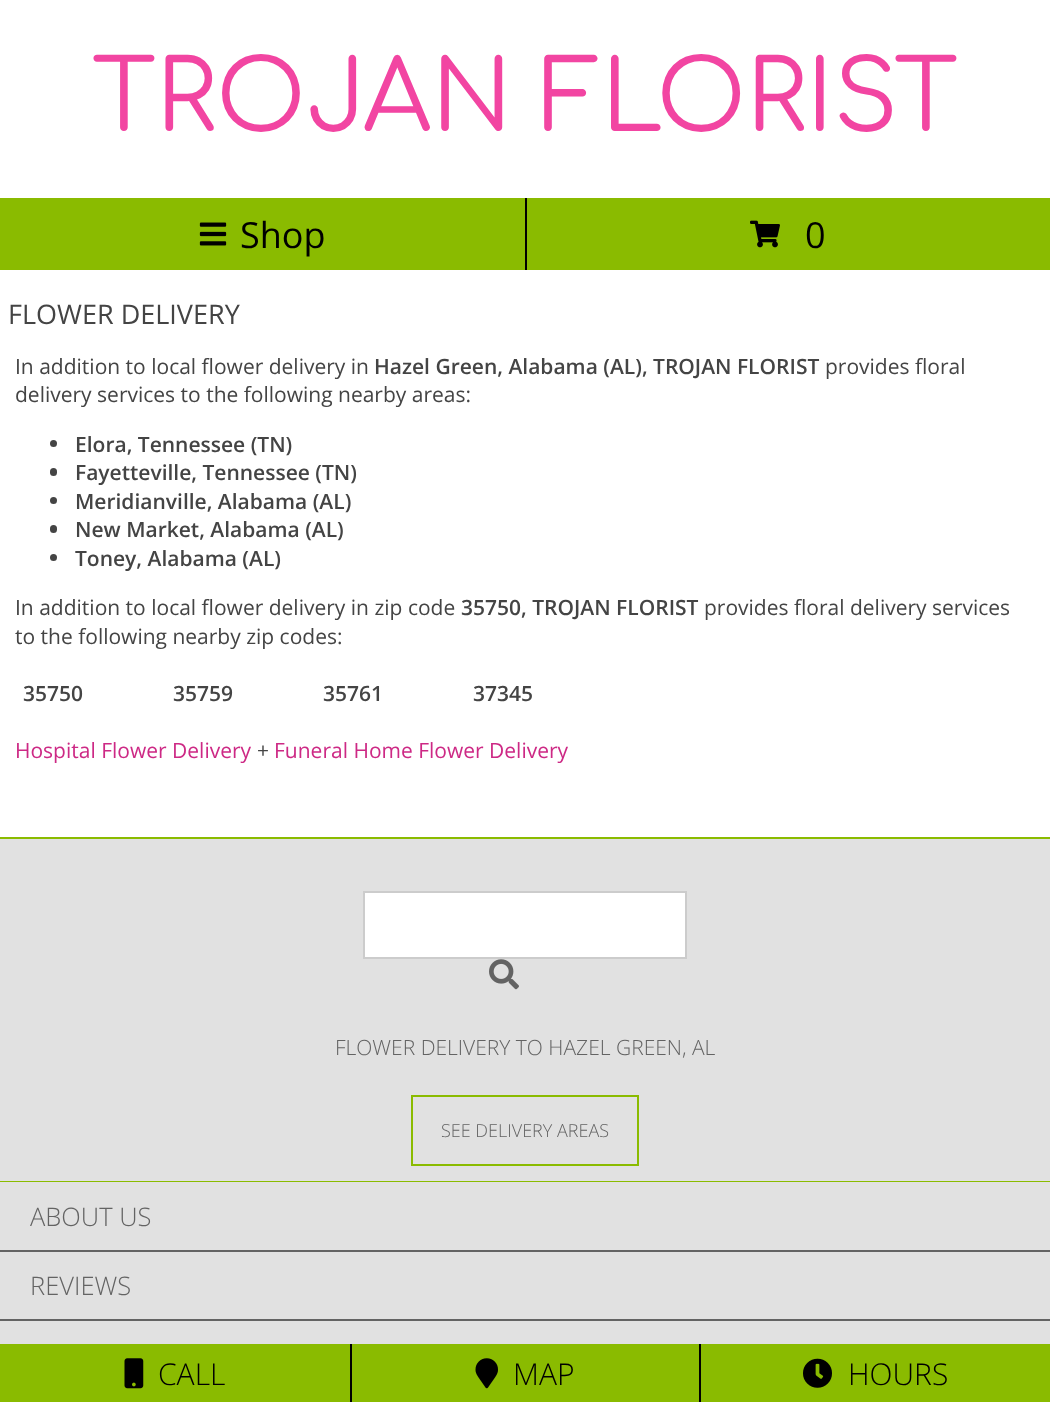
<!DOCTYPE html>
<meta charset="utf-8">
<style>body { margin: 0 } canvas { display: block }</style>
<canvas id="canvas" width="1050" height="1402"></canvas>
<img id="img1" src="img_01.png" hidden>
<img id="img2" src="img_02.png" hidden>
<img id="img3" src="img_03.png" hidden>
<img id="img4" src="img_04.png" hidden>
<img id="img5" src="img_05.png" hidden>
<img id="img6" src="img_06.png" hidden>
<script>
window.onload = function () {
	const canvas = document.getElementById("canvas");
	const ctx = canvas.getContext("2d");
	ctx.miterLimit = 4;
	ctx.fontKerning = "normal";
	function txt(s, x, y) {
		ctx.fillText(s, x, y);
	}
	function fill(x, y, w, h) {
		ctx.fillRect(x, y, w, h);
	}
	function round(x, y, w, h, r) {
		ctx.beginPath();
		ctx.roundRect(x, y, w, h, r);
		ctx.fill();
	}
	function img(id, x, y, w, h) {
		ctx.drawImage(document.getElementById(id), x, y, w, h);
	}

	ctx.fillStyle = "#FFFFFF";
	fill(0, 0, 1050, 1402);
	ctx.fillStyle = "#000000";
	fill(525, 198, 2, 72);
	ctx.fillStyle = "#8ABB00";
	fill(0, 198, 525, 72);
	img("img1", 199, 222, 28, 24);
	fill(527, 198, 523, 72);
	img("img2", 750, 220, 30, 28);
	ctx.fillStyle = "#444444";
	ctx.beginPath();
	ctx.arc(53.5, 443.5, 3.5, 0, Math.PI * 2);
	ctx.fill();
	round(50, 468, 7, 8, 3.5);
	ctx.beginPath();
	ctx.arc(53.5, 500.5, 3.5, 0, Math.PI * 2);
	ctx.fill();
	round(50, 525, 7, 8, 3.5);
	ctx.beginPath();
	ctx.arc(53.5, 557.5, 3.5, 0, Math.PI * 2);
	ctx.fill();
	ctx.fillStyle = "#E1E1E1";
	fill(0, 839, 1050, 342);
	ctx.fillStyle = "#8ABB00";
	fill(0, 837, 1050, 2);
	fill(0, 1181, 1050, 1);
	ctx.fillStyle = "#FFFFFF";
	ctx.beginPath();
	ctx.rect(364, 892, 322, 66);
	ctx.fill();
	ctx.strokeStyle = "#CCCCCC";
	ctx.lineWidth = 2;
	ctx.stroke();
	img("img3", 489, 959, 30, 31);
	ctx.strokeStyle = "#8ABB00";
	ctx.strokeRect(412, 1096, 226, 69);
	ctx.fillStyle = "#E1E1E1";
	fill(0, 1182, 1050, 162);
	ctx.fillStyle = "#636363";
	fill(0, 1250, 1050, 2);
	fill(0, 1319, 1050, 2);
	ctx.fillStyle = "#8ABB00";
	fill(0, 1344, 350, 58);
	img("img4", 124, 1358, 20, 31);
	fill(352, 1344, 347, 58);
	ctx.fillStyle = "#000000";
	fill(350, 1344, 2, 58);
	img("img5", 475, 1358, 23, 31);
	ctx.fillStyle = "#8ABB00";
	fill(701, 1344, 349, 58);
	ctx.fillStyle = "#000000";
	fill(699, 1344, 2, 58);
	img("img6", 803, 1358, 29, 30);
	ctx.font = "97.5px Comfortaa";
	ctx.fillStyle = "#F245A2";
	txt("TROJAN FLORIST", 92, 131);
	ctx.font = "36px Open Sans";
	ctx.fillStyle = "#000000";
	txt("Shop", 240, 248);
	txt("0", 805, 248);
	ctx.font = "27px Open Sans";
	ctx.fillStyle = "#444444";
	txt("FLOWER DELIVERY", 8, 324);
	ctx.font = "21px Open Sans";
	txt("In addition to local flower delivery in", 15, 374);
	ctx.font = "600 21px Open Sans";
	txt("Hazel Green, Alabama (AL), TROJAN FLORIST", 374, 374);
	ctx.font = "21px Open Sans";
	txt("provides floral", 825, 374);
	txt("delivery services to the following nearby areas:", 15, 402);
	ctx.font = "600 21px Open Sans";
	txt("Elora, Tennessee (TN)", 75, 452);
	txt("Fayetteville, Tennessee (TN)", 75, 480);
	txt("Meridianville, Alabama (AL)", 75, 509);
	txt("New Market, Alabama (AL)", 75, 537);
	txt("Toney, Alabama (AL)", 75, 566);
	ctx.font = "21px Open Sans";
	txt("In addition to local flower delivery in zip code", 15, 615);
	ctx.font = "600 21px Open Sans";
	txt("35750, TROJAN FLORIST", 461, 615);
	ctx.font = "21px Open Sans";
	txt("provides floral delivery services", 704, 615);
	txt("to the following nearby zip codes:", 15, 644);
	ctx.font = "600 21px Open Sans";
	txt("35750", 23, 701);
	txt("35759", 173, 701);
	txt("35761", 323, 701);
	txt("37345", 473, 701);
	ctx.font = "21px Open Sans";
	ctx.fillStyle = "#CD2985";
	txt("Hospital Flower Delivery", 15, 758);
	ctx.fillStyle = "#444444";
	txt("+", 257, 758);
	ctx.fillStyle = "#CD2985";
	txt("Funeral Home Flower Delivery", 274, 758);
	ctx.font = "300 21px Open Sans";
	ctx.fillStyle = "#636363";
	txt("FLOWER DELIVERY TO HAZEL GREEN, AL", 335, 1055);
	ctx.font = "300 18px Open Sans";
	txt("SEE DELIVERY AREAS", 441, 1137);
	ctx.font = "300 25.5px Open Sans";
	txt("ABOUT US", 30, 1226);
	txt("REVIEWS", 30, 1295);
	ctx.font = "300 30px Open Sans";
	ctx.fillStyle = "#000000";
	txt("CALL", 158, 1385);
	txt("MAP", 513, 1385);
	txt("HOURS", 848, 1385);
};
</script>
